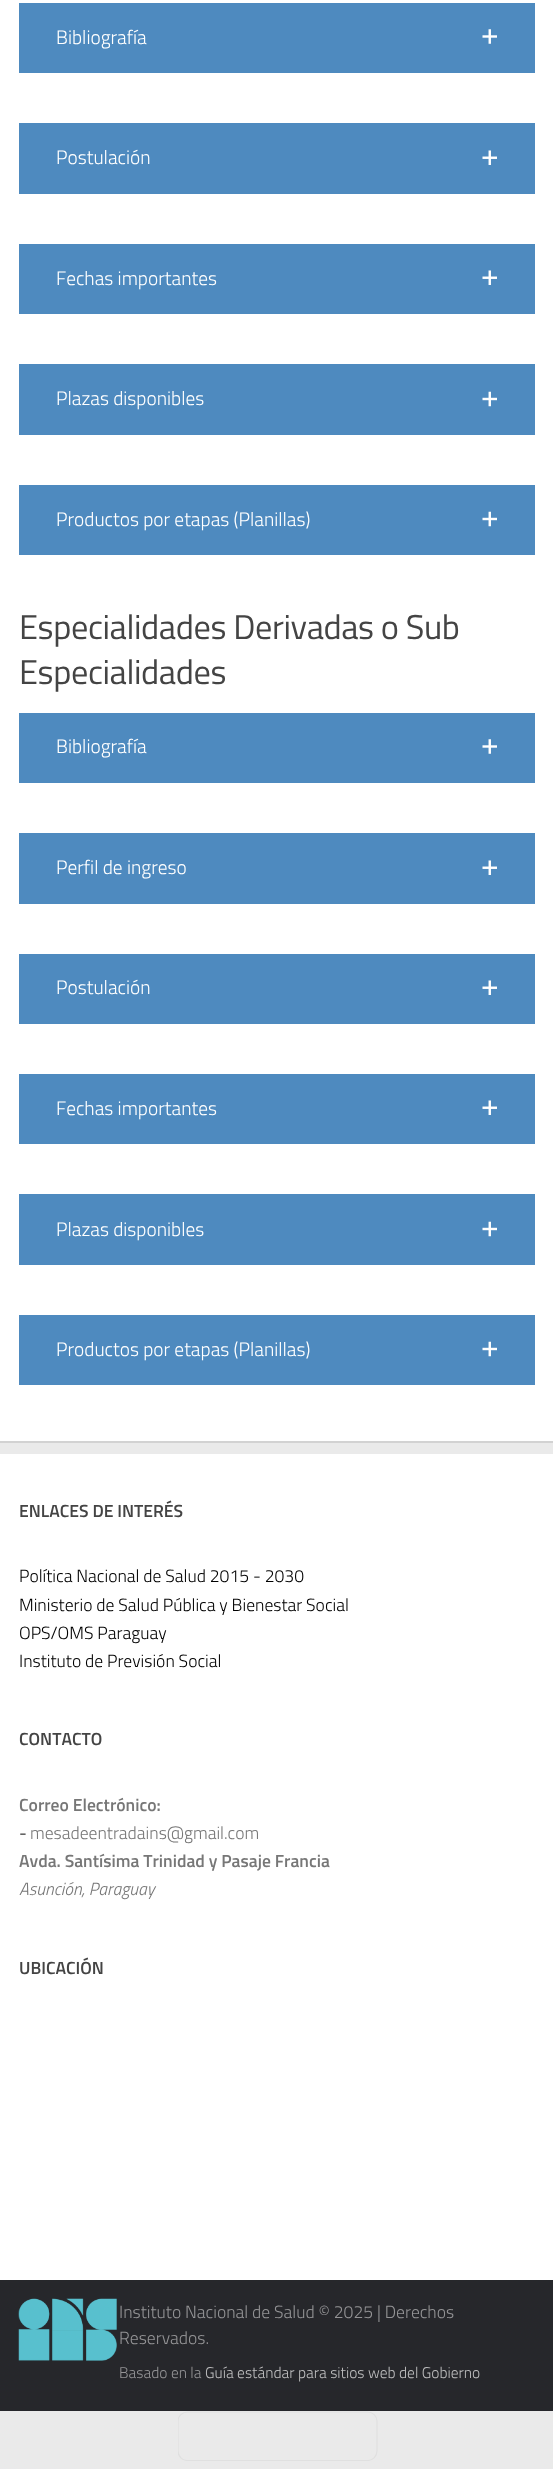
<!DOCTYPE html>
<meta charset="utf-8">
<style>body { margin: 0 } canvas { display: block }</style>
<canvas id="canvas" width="553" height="2469"></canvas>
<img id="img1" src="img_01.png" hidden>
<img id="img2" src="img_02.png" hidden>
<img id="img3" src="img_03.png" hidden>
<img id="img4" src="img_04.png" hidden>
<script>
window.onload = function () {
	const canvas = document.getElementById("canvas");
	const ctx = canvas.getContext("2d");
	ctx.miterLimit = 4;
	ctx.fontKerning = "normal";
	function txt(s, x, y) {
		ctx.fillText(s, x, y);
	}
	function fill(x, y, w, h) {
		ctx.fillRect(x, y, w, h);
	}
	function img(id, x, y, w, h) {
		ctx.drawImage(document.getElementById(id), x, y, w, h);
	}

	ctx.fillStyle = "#EAEAEA";
	fill(0, 0, 553, 2469);
	ctx.fillStyle = "rgba(0, 0, 0, 0.1)";
	ctx.filter = "blur(0.5px)";
	ctx.beginPath();
	ctx.rect(0, -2, 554, 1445);
	ctx.fill();
	ctx.filter = "none";
	ctx.fillStyle = "#FFFFFF";
	fill(0, 0, 553, 1441);
	ctx.fillStyle = "#4E8ABF";
	fill(19, 3, 516, 70);
	img("img1", 482, 29, 15, 15);
	fill(19, 123, 516, 71);
	img("img2", 482, 150, 15, 15);
	fill(19, 244, 516, 70);
	img("img2", 482, 270, 15, 15);
	fill(19, 364, 516, 71);
	img("img3", 482, 391, 15, 16);
	fill(19, 485, 516, 70);
	img("img3", 482, 511, 15, 16);
	fill(19, 713, 516, 70);
	img("img1", 482, 739, 15, 15);
	fill(19, 833, 516, 71);
	img("img2", 482, 860, 15, 15);
	fill(19, 954, 516, 70);
	img("img2", 482, 980, 15, 15);
	fill(19, 1074, 516, 70);
	img("img2", 482, 1100, 15, 15);
	fill(19, 1194, 516, 71);
	img("img3", 482, 1221, 15, 16);
	fill(19, 1315, 516, 70);
	img("img3", 482, 1341, 15, 16);
	ctx.fillStyle = "#FFFFFF";
	fill(0, 1454, 553, 826);
	ctx.fillStyle = "#26272B";
	fill(0, 2280, 553, 131);
	img("img4", 18, 2298, 99, 63);
	ctx.save();
	ctx.beginPath();
	ctx.rect(178, 2411, 200, 50);
	ctx.clip();
	ctx.beginPath();
	ctx.moveTo(187.5, 2412);
	ctx.lineTo(367.5, 2412);
	ctx.bezierCurveTo(372.5, 2412, 377, 2416, 377, 2421);
	ctx.lineTo(377, 2451);
	ctx.bezierCurveTo(377, 2456.5, 372.5, 2460.5, 367.5, 2460.5);
	ctx.lineTo(187.5, 2460.5);
	ctx.bezierCurveTo(182.5, 2460.5, 178, 2456.5, 178, 2451);
	ctx.lineTo(178, 2421);
	ctx.bezierCurveTo(178, 2416, 182.5, 2412, 187.5, 2412);
	ctx.closePath();
	ctx.strokeStyle = "#E0E0E0";
	ctx.lineWidth = 1.2;
	ctx.stroke();
	ctx.restore();
	ctx.font = "300 19.4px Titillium";
	ctx.fillStyle = "#FFFFFF";
	txt("Bibliografía", 56, 44);
	txt("Postulación", 56, 164);
	txt("Fechas importantes", 56, 285);
	txt("Plazas disponibles", 56, 405);
	txt("Productos por etapas (Planillas)", 56, 526);
	ctx.letterSpacing = "-0.4px";
	ctx.font = "34.4px Titillium";
	ctx.fillStyle = "#444444";
	txt("Especialidades Derivadas o Sub", 19, 639);
	txt("Especialidades", 19, 684);
	ctx.letterSpacing = "0px";
	ctx.font = "300 19.4px Titillium";
	ctx.fillStyle = "#FFFFFF";
	txt("Bibliografía", 56, 753);
	txt("Perfil de ingreso", 56, 874);
	txt("Postulación", 56, 994);
	txt("Fechas importantes", 56, 1115);
	txt("Plazas disponibles", 56, 1236);
	txt("Productos por etapas (Planillas)", 56, 1356);
	ctx.font = "600 17.6px Titillium";
	ctx.fillStyle = "#444444";
	txt("ENLACES DE INTERÉS", 19, 1517);
	ctx.font = "300 17.6px Titillium";
	ctx.fillStyle = "#000000";
	txt("Política Nacional de Salud 2015 - 2030", 19, 1582);
	txt("Ministerio de Salud Pública y Bienestar Social", 19, 1611);
	txt("OPS/OMS Paraguay", 19, 1639);
	txt("Instituto de Previsión Social", 19, 1667);
	ctx.font = "600 17.6px Titillium";
	ctx.fillStyle = "#444444";
	txt("CONTACTO", 19, 1745);
	ctx.fillStyle = "#777777";
	txt("Correo Electrónico:", 19, 1811);
	ctx.font = "300 17.6px Titillium";
	ctx.fillStyle = "#000000";
	txt("-", 19, 1839);
	ctx.fillStyle = "#777777";
	txt("mesadeentradains@gmail.com", 30, 1839);
	ctx.font = "600 17.6px Titillium";
	txt("Avda. Santísima Trinidad y Pasaje Francia", 19, 1867);
	ctx.font = "italic 300 17.6px Titillium";
	txt("Asunción, Paraguay", 19, 1895);
	ctx.font = "600 17.6px Titillium";
	ctx.fillStyle = "#444444";
	txt("UBICACIÓN", 19, 1974);
	ctx.font = "300 17.6px Titillium";
	ctx.fillStyle = "#939395";
	txt("Instituto Nacional de Salud © 2025 | Derechos", 119, 2318);
	txt("Reservados.", 119, 2344);
	ctx.font = "300 15.5px Titillium";
	txt("Basado en la", 119, 2378);
	ctx.fillStyle = "#BEBEBF";
	txt("Guía estándar para sitios web del Gobierno", 205, 2378);
};
</script>
